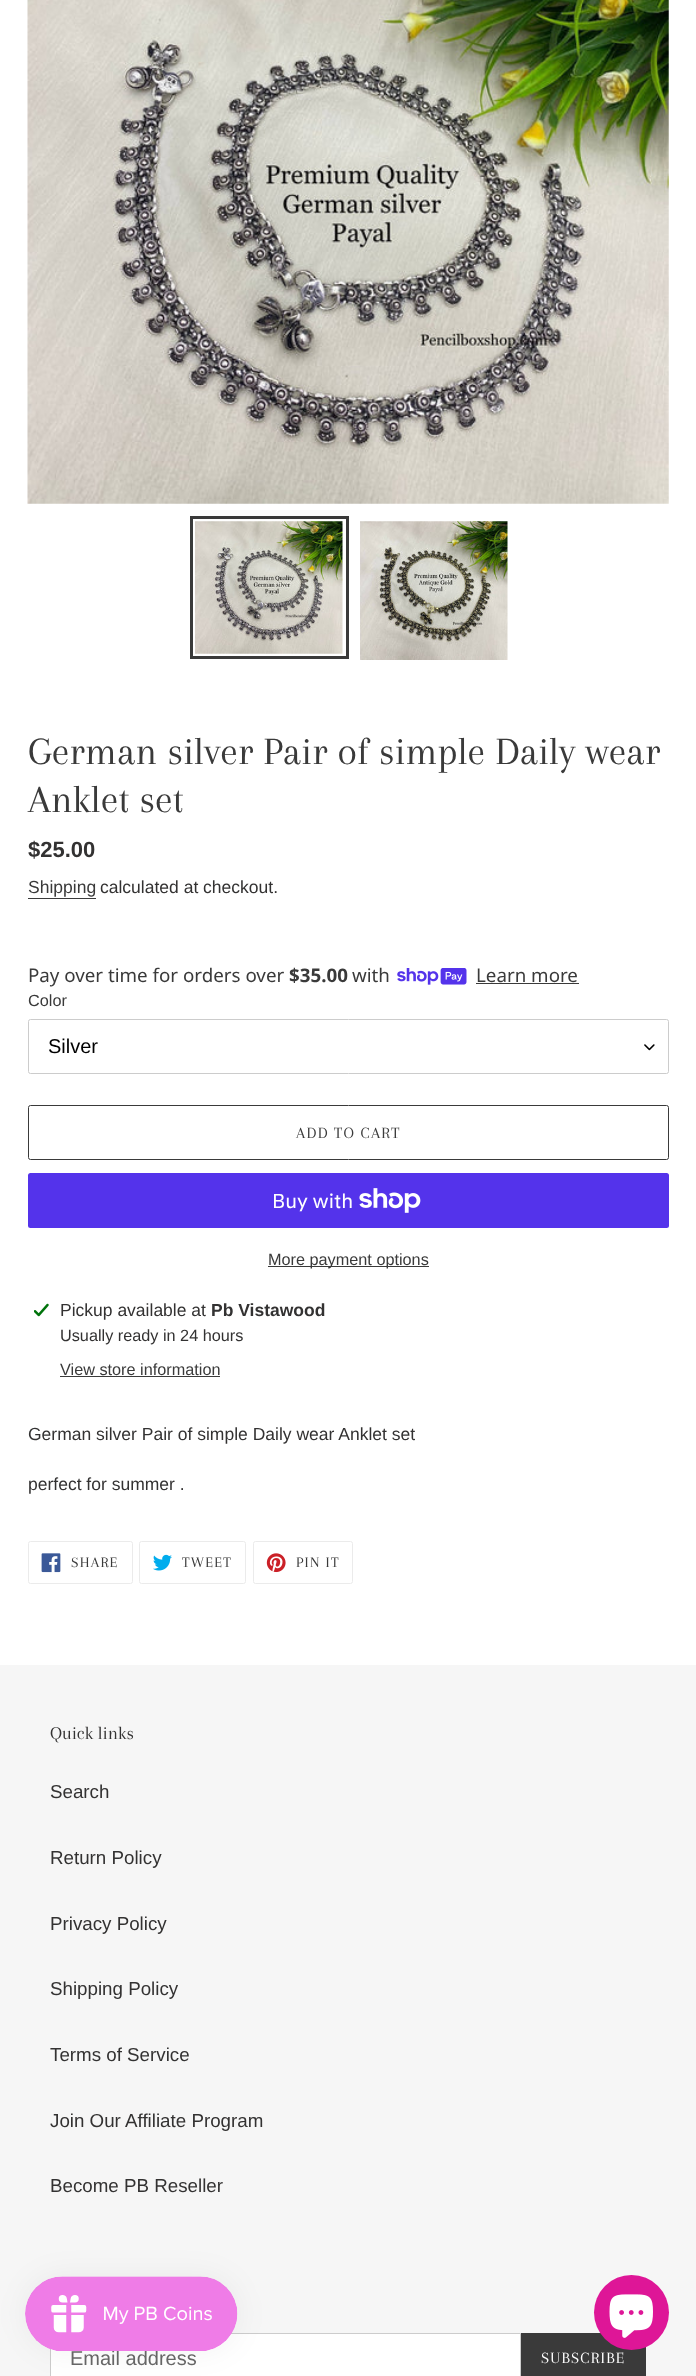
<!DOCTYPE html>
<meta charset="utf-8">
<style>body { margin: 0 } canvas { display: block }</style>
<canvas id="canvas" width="696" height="2376"></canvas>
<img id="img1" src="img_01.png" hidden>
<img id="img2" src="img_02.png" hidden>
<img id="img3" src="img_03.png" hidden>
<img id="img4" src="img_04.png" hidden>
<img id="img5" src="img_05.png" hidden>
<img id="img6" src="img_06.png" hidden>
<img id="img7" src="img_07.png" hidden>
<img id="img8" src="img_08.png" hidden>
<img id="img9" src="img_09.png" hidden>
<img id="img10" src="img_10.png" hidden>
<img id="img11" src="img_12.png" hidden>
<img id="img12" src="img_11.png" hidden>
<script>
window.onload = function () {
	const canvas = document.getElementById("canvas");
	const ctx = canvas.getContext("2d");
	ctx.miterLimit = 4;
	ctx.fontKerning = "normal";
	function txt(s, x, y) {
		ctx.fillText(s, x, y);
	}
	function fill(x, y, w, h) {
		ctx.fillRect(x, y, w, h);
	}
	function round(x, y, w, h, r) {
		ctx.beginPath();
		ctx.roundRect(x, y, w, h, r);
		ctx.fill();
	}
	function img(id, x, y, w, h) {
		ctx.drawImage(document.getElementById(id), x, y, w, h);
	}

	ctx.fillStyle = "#FFFFFF";
	fill(0, 0, 696, 2376);
	img("img1", 27, 0, 642, 504);
	ctx.strokeStyle = "#3A3A3A";
	ctx.lineWidth = 3;
	ctx.strokeRect(191.5, 517.5, 156, 140);
	img("img2", 195, 521, 148, 133);
	img("img3", 360, 521, 148, 139);
	ctx.fillStyle = "#3A3A3A";
	fill(28, 898, 68, 1);
	img("img4", 397, 968, 70, 17);
	fill(476, 983, 103, 1);
	img("img5", 644, 1044, 11, 7);
	ctx.beginPath();
	ctx.roundRect(28.5, 1019.5, 640, 54, 2);
	ctx.strokeStyle = "#CCCCCC";
	ctx.lineWidth = 1;
	ctx.stroke();
	ctx.beginPath();
	ctx.roundRect(28.5, 1105.5, 640, 54, 2);
	ctx.strokeStyle = "#3A3A3A";
	ctx.stroke();
	ctx.fillStyle = "#5433EB";
	round(28, 1173, 641, 55, 2.5);
	img("img6", 359, 1188, 62, 25);
	ctx.fillStyle = "#3A3A3A";
	fill(268, 1266, 161, 1);
	img("img7", 34, 1303, 15, 14);
	fill(60, 1376, 160, 1);
	ctx.beginPath();
	ctx.roundRect(28.5, 1541.5, 104, 42, 2);
	ctx.strokeStyle = "#EBEBEB";
	ctx.stroke();
	img("img8", 41, 1553, 20, 20);
	ctx.beginPath();
	ctx.roundRect(139.5, 1541.5, 106, 42, 2);
	ctx.stroke();
	img("img9", 153, 1554, 19, 17);
	ctx.beginPath();
	ctx.roundRect(253.5, 1541.5, 99, 42, 2);
	ctx.stroke();
	img("img10", 266, 1553, 20, 20);
	ctx.fillStyle = "#F6F6F6";
	fill(0, 1665, 696, 711);
	ctx.fillStyle = "#FFFFFF";
	ctx.beginPath();
	ctx.rect(50.5, 2333.5, 470, 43);
	ctx.fill();
	ctx.strokeStyle = "#CCCCCC";
	ctx.stroke();
	ctx.fillStyle = "#3A3A3A";
	fill(521, 2333, 125, 43);
	ctx.fillStyle = "rgba(0, 0, 0, 0.05)";
	ctx.filter = "blur(15.5px)";
	ctx.beginPath();
	ctx.roundRect(25, 2276, 213, 75, 37.5);
	ctx.fill();
	ctx.filter = "none";
	ctx.fillStyle = "#DE1697";
	ctx.beginPath();
	ctx.arc(631.5, 2312.5, 37.5, 0, Math.PI * 2);
	ctx.fill();
	img("img11", 609, 2294, 44, 44);
	ctx.font = "40px Arapey";
	ctx.fillStyle = "#3A3A3A";
	txt("German silver Pair of simple Daily wear", 28, 764);
	txt("Anklet set", 28, 812);
	ctx.font = "bold 22px Liberation Sans";
	ctx.fillStyle = "#333232";
	txt("$25.00", 28, 857);
	ctx.font = "17.5px Liberation Sans";
	ctx.fillStyle = "#3A3A3A";
	txt("Shipping", 28, 893);
	ctx.fillStyle = "#333232";
	txt("calculated at checkout.", 100, 893);
	ctx.font = "18.75px Noto Sans";
	ctx.fillStyle = "#3A3A3A";
	txt("Pay over time for orders over", 28, 982);
	ctx.font = "bold 18.75px Noto Sans";
	txt("$35.00", 289, 982);
	ctx.font = "18.75px Noto Sans";
	txt("with", 352, 982);
	txt("Learn more", 476, 982);
	ctx.font = "16.25px Liberation Sans";
	txt("Color", 28, 1006);
	ctx.font = "20px Liberation Sans";
	ctx.fillStyle = "#000000";
	txt("Silver", 48, 1053);
	ctx.letterSpacing = "1.25px";
	ctx.font = "16.25px Arapey";
	ctx.fillStyle = "#3A3A3A";
	txt("ADD TO CART", 296, 1138);
	ctx.letterSpacing = "0px";
	ctx.font = "20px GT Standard";
	ctx.fillStyle = "#FFFFFF";
	txt("Buy with", 272, 1208);
	ctx.font = "16.25px Liberation Sans";
	ctx.fillStyle = "#3A3A3A";
	txt("More payment options", 268, 1265);
	ctx.font = "17.5px Liberation Sans";
	ctx.fillStyle = "#333232";
	txt("Pickup available at", 60, 1316);
	ctx.font = "bold 17.5px Liberation Sans";
	txt("Pb Vistawood", 211, 1316);
	ctx.font = "16.25px Liberation Sans";
	txt("Usually ready in 24 hours", 60, 1341);
	ctx.fillStyle = "#3A3A3A";
	txt("View store information", 60, 1375);
	ctx.font = "17.5px Liberation Sans";
	ctx.fillStyle = "#333232";
	txt("German silver Pair of simple Daily wear Anklet set", 28, 1440);
	txt("perfect for summer .", 28, 1490);
	ctx.letterSpacing = "1.25px";
	ctx.font = "15px Arapey";
	ctx.fillStyle = "#3A3A3A";
	txt("SHARE", 71, 1567);
	txt("TWEET", 182, 1567);
	txt("PIN IT", 296, 1567);
	ctx.letterSpacing = "0px";
	ctx.font = "18.75px Arapey";
	ctx.fillStyle = "#333232";
	txt("Quick links", 50, 1739);
	ctx.font = "18.75px Liberation Sans";
	txt("Search", 50, 1798);
	txt("Return Policy", 50, 1864);
	txt("Privacy Policy", 50, 1930);
	txt("Shipping Policy", 50, 1995);
	txt("Terms of Service", 50, 2061);
	txt("Join Our Affiliate Program", 50, 2127);
	txt("Become PB Reseller", 50, 2192);
	ctx.font = "20px Liberation Sans";
	ctx.fillStyle = "#666666";
	txt("Email address", 70, 2365);
	ctx.letterSpacing = "1.25px";
	ctx.font = "16.25px Arapey";
	ctx.fillStyle = "#FFFFFF";
	txt("SUBSCRIBE", 541, 2363);
	img("img12", 25, 2276, 213, 75);
};
</script>
